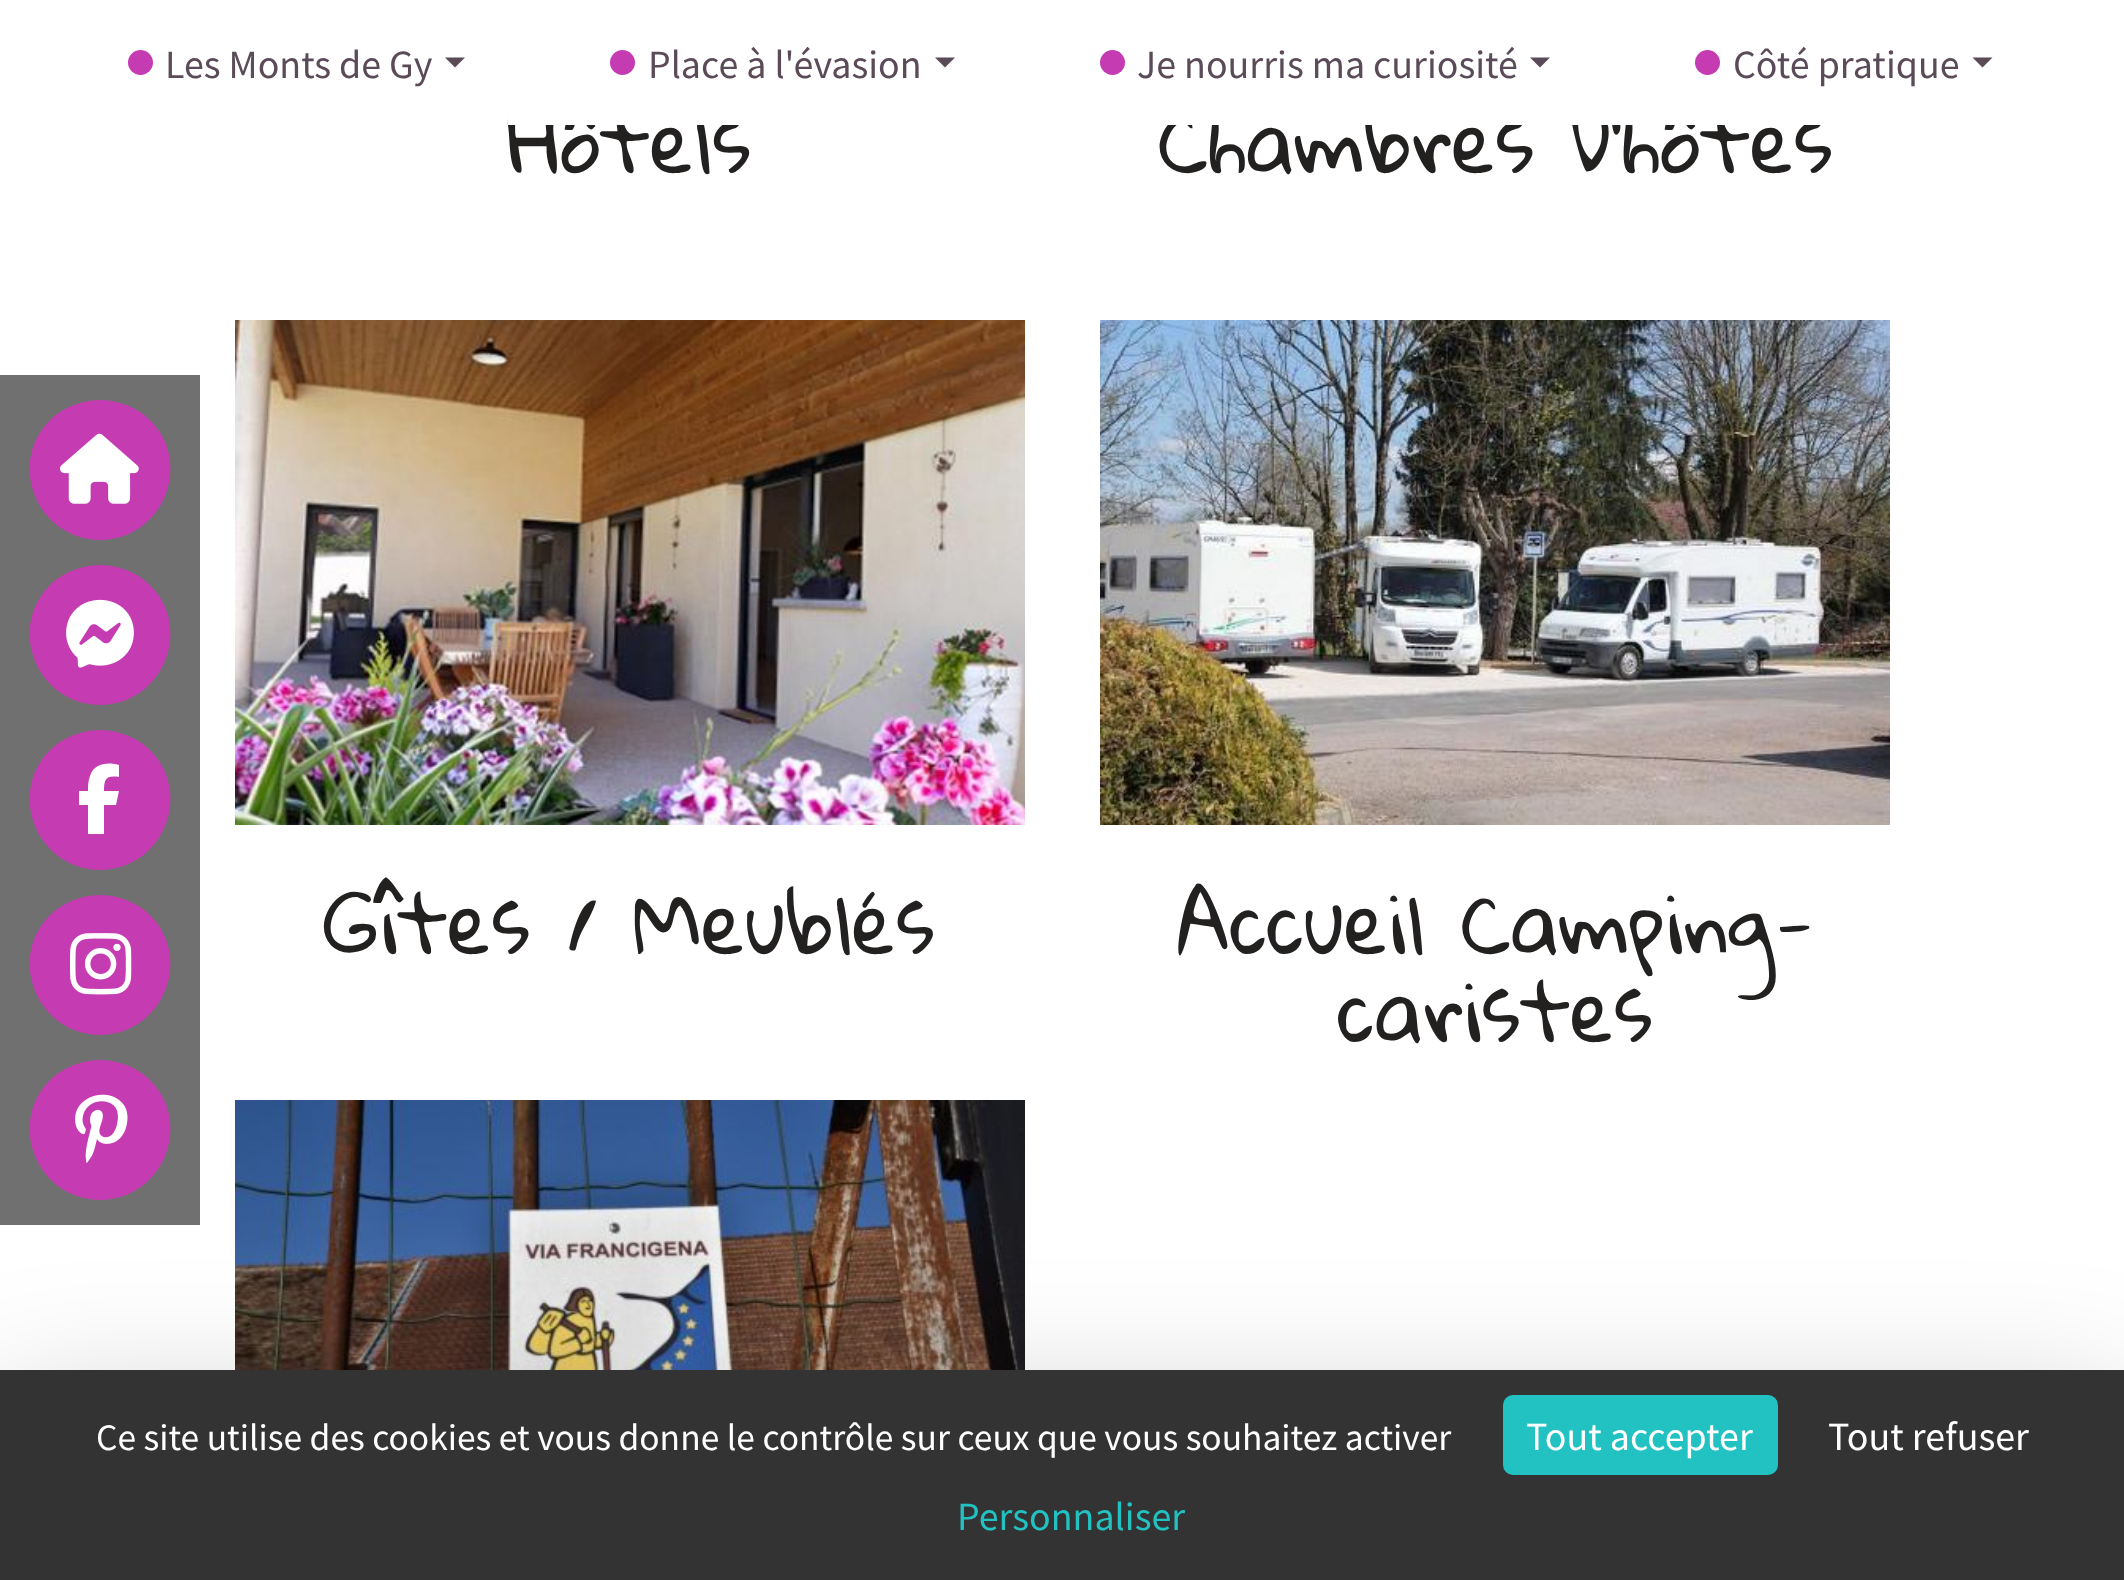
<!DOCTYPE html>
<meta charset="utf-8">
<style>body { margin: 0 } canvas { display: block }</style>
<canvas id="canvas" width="2124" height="1580"></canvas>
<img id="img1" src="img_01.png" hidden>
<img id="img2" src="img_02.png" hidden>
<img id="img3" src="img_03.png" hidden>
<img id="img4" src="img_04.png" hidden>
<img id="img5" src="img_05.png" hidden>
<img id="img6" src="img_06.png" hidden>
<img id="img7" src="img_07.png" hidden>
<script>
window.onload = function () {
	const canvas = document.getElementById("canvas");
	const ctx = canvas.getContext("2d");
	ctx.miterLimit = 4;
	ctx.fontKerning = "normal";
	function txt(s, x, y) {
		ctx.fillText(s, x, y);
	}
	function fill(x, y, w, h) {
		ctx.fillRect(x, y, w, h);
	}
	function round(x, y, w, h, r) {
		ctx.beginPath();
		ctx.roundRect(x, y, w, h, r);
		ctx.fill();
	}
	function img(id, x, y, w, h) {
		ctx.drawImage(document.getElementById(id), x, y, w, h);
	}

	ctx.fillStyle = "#FFFFFF";
	fill(0, 0, 2124, 1580);
	ctx.fillStyle = "#C53BB2";
	ctx.beginPath();
	ctx.arc(140.5, 62.5, 12.5, 0, Math.PI * 2);
	ctx.fill();
	ctx.fillStyle = "#5B4B59";
	ctx.beginPath();
	ctx.moveTo(445, 57.5);
	ctx.lineTo(465, 57.5);
	ctx.lineTo(455, 67.5);
	ctx.closePath();
	ctx.fill();
	ctx.fillStyle = "#C53BB2";
	ctx.beginPath();
	ctx.arc(622.5, 62.5, 12.5, 0, Math.PI * 2);
	ctx.fill();
	ctx.fillStyle = "#5B4B59";
	ctx.beginPath();
	ctx.moveTo(935, 57.5);
	ctx.lineTo(955, 57.5);
	ctx.lineTo(945, 67.5);
	ctx.closePath();
	ctx.fill();
	ctx.fillStyle = "#C53BB2";
	ctx.beginPath();
	ctx.arc(1112.5, 62.5, 12.5, 0, Math.PI * 2);
	ctx.fill();
	ctx.fillStyle = "#5B4B59";
	ctx.beginPath();
	ctx.moveTo(1530, 57.5);
	ctx.lineTo(1550, 57.5);
	ctx.lineTo(1540, 67.5);
	ctx.closePath();
	ctx.fill();
	ctx.fillStyle = "#C53BB2";
	ctx.beginPath();
	ctx.arc(1707.5, 62.5, 12.5, 0, Math.PI * 2);
	ctx.fill();
	ctx.fillStyle = "#5B4B59";
	ctx.beginPath();
	ctx.moveTo(1972.5, 57.5);
	ctx.lineTo(1992.5, 57.5);
	ctx.lineTo(1982.5, 67.5);
	ctx.closePath();
	ctx.fill();
	ctx.fillStyle = "#717070";
	fill(0, 375, 200, 850);
	ctx.fillStyle = "#C53BB2";
	ctx.beginPath();
	ctx.moveTo(100, 540);
	ctx.bezierCurveTo(167, 539, 196, 455, 143, 414);
	ctx.bezierCurveTo(130, 405, 115, 400, 100, 400);
	ctx.bezierCurveTo(85, 400, 70, 405, 57, 414);
	ctx.bezierCurveTo(4, 455, 33, 539, 100, 540);
	ctx.closePath();
	ctx.fill();
	img("img1", 60, 433, 79, 71);
	ctx.beginPath();
	ctx.moveTo(100, 705);
	ctx.bezierCurveTo(167, 704, 196, 620, 143, 579);
	ctx.bezierCurveTo(130, 570, 115, 565, 100, 565);
	ctx.bezierCurveTo(85, 565, 70, 570, 57, 579);
	ctx.bezierCurveTo(4, 620, 33, 704, 100, 705);
	ctx.closePath();
	ctx.fill();
	img("img2", 66, 599, 68, 69);
	ctx.beginPath();
	ctx.moveTo(100, 870);
	ctx.bezierCurveTo(167, 869, 196, 785, 143, 744);
	ctx.bezierCurveTo(130, 735, 115, 730, 100, 730);
	ctx.bezierCurveTo(85, 730, 70, 735, 57, 744);
	ctx.bezierCurveTo(4, 785, 33, 869, 100, 870);
	ctx.closePath();
	ctx.fill();
	ctx.fillStyle = "#FFFFFF";
	ctx.beginPath();
	ctx.moveTo(88, 805);
	ctx.lineTo(88, 834);
	ctx.lineTo(88, 805);
	ctx.lineTo(88, 834);
	ctx.lineTo(104, 834);
	ctx.lineTo(104, 805);
	ctx.lineTo(116, 805);
	ctx.lineTo(119, 791);
	ctx.lineTo(104, 791);
	ctx.bezierCurveTo(104, 779, 106, 775, 119, 777);
	ctx.lineTo(119, 765);
	ctx.bezierCurveTo(108, 762, 94, 763, 90, 776);
	ctx.bezierCurveTo(88, 781, 88, 786, 88, 791);
	ctx.lineTo(79, 791);
	ctx.lineTo(79, 805);
	ctx.closePath();
	ctx.fill();
	ctx.fillStyle = "#C53BB2";
	ctx.beginPath();
	ctx.moveTo(100, 1035);
	ctx.bezierCurveTo(167, 1034, 196, 950, 143, 909);
	ctx.bezierCurveTo(130, 900, 115, 895, 100, 895);
	ctx.bezierCurveTo(85, 895, 70, 900, 57, 909);
	ctx.bezierCurveTo(4, 950, 33, 1034, 100, 1035);
	ctx.closePath();
	ctx.fill();
	img("img3", 70, 933, 62, 62);
	ctx.beginPath();
	ctx.moveTo(100, 1200);
	ctx.bezierCurveTo(167, 1199, 196, 1115, 143, 1074);
	ctx.bezierCurveTo(130, 1065, 115, 1060, 100, 1060);
	ctx.bezierCurveTo(85, 1060, 70, 1065, 57, 1074);
	ctx.bezierCurveTo(4, 1115, 33, 1199, 100, 1200);
	ctx.closePath();
	ctx.fill();
	img("img4", 75, 1094, 53, 69);
	img("img5", 235, 320, 790, 505);
	img("img6", 1100, 320, 790, 505);
	img("img7", 235, 1100, 790, 270);
	ctx.fillStyle = "rgba(0, 0, 0, 0.25)";
	ctx.filter = "blur(75px)";
	ctx.beginPath();
	ctx.rect(0, 1420, 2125, 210);
	ctx.fill();
	ctx.filter = "none";
	ctx.fillStyle = "#333333";
	fill(0, 1370, 2124, 210);
	ctx.fillStyle = "#23C2C2";
	round(1503, 1395, 275, 80, 10);
	ctx.font = "40px Source Sans Pro";
	ctx.fillStyle = "#5B4B59";
	txt("Les Monts de Gy", 165, 78);
	txt("Place à l'évasion", 648, 78);
	txt("Je nourris ma curiosité", 1137, 78);
	txt("Côté pratique", 1733, 78);
	ctx.font = "80px Gloria Hallelujah";
	ctx.fillStyle = "#232020";
	txt("Hôtels", 508, 173);
	txt("Chambres D'hôtes", 1158, 173);
	ctx.fillStyle = "#FFFFFF";
	fill(508, 104, 1313, 21);
	ctx.fillStyle = "#232020";
	txt("Gîtes / Meublés", 324, 954);
	txt("Accueil Camping-", 1177, 954);
	txt("caristes", 1338, 1042);
	ctx.font = "37.5px Source Sans Pro";
	ctx.fillStyle = "#FFFFFF";
	txt("Ce site utilise des cookies et vous donne le contrôle sur ceux que vous souhaitez activer", 96, 1450);
	ctx.font = "40px Source Sans Pro";
	txt("Tout accepter", 1526, 1450);
	txt("Tout refuser", 1828, 1450);
	ctx.fillStyle = "#23C2C2";
	txt("Personnaliser", 957, 1530);
};
</script>
